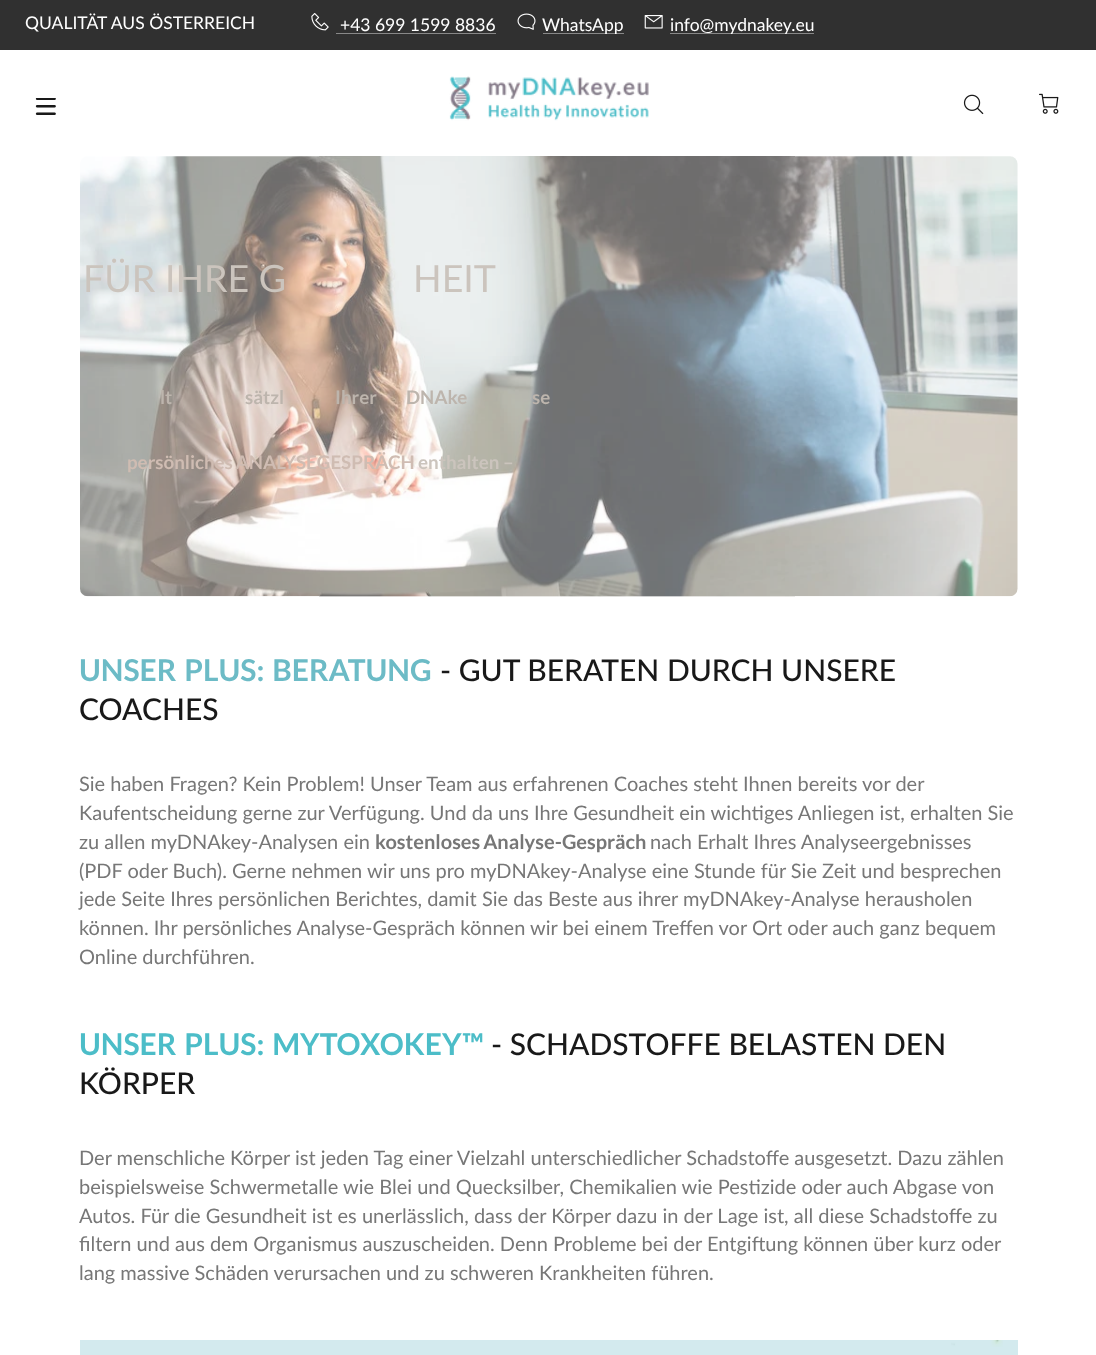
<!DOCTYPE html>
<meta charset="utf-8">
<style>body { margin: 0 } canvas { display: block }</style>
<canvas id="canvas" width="1096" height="1355"></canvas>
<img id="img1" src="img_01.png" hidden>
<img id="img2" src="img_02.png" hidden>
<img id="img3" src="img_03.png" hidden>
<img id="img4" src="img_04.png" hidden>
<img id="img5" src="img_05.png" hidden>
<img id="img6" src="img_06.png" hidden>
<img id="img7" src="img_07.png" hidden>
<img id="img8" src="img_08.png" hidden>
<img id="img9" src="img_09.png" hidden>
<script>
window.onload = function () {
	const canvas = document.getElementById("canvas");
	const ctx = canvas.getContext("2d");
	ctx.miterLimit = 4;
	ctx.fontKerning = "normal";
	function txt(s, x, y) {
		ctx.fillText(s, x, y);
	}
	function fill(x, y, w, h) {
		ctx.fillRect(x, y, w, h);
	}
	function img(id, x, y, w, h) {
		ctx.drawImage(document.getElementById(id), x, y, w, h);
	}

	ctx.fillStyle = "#FFFFFF";
	fill(0, 0, 1096, 1355);
	ctx.fillStyle = "#D3EAEE";
	fill(80, 1340, 938, 15);
	ctx.fillStyle = "#303030";
	fill(0, 0, 1096, 50);
	img("img1", 311, 13, 18, 18);
	ctx.fillStyle = "#888888";
	fill(336, 33, 160, 1);
	img("img2", 517, 13, 19, 17);
	fill(543, 33, 81, 1);
	img("img3", 644, 15, 19, 14);
	fill(670, 33, 144, 1);
	img("img4", 35, 98, 21, 17);
	img("img5", 449, 76, 200, 45);
	img("img6", 963, 94, 21, 21);
	img("img7", 1039, 93, 20, 21);
	img("img8", 80, 156, 938, 441);
	img("img9", 951, 1340, 52, 7);
	ctx.font = "17.5px Lato";
	ctx.fillStyle = "#FFFFFF";
	txt("QUALITÄT AUS ÖSTERREICH", 25, 29);
	txt("+43 699 1599 8836", 340, 31);
	txt("WhatsApp", 542, 31);
	txt("info@mydnakey.eu", 670, 31);
	ctx.font = "37.5px Lato";
	ctx.fillStyle = "#CBC4BD";
	txt("FÜR IHRE G", 83, 292);
	txt("HEIT", 413, 292);
	ctx.font = "bold 18.75px Lato";
	ctx.fillStyle = "#BDB5AD";
	txt("lt", 160, 404);
	txt("sätzl", 245, 404);
	txt("Ihrer", 335, 404);
	txt("DNAke", 406, 404);
	txt("se", 532, 404);
	ctx.wordSpacing = "-1px";
	ctx.fillStyle = "#CFBCB2";
	txt("persönliches ANALYSEGESPRÄCH", 127, 469);
	ctx.wordSpacing = "0px";
	ctx.fillStyle = "#CBC4BD";
	txt("enthalten –", 418, 469);
	ctx.wordSpacing = "2px";
	ctx.font = "bold 30px Lato";
	ctx.fillStyle = "#6CBBC6";
	txt("UNSER PLUS: BERATUNG", 79, 681);
	ctx.wordSpacing = "0px";
	ctx.font = "500 30px Lato";
	ctx.fillStyle = "#191919";
	txt("- GUT BERATEN DURCH UNSERE", 440, 681);
	txt("COACHES", 79, 720);
	ctx.font = "20px Lato";
	ctx.fillStyle = "#777777";
	txt("Sie haben Fragen? Kein Problem! Unser Team aus erfahrenen Coaches steht Ihnen bereits vor der", 79, 791);
	txt("Kaufentscheidung gerne zur Verfügung. Und da uns Ihre Gesundheit ein wichtiges Anliegen ist, erhalten Sie", 79, 820);
	txt("zu allen myDNAkey-Analysen ein", 79, 849);
	ctx.wordSpacing = "-1px";
	ctx.font = "bold 20px Lato";
	txt("kostenloses Analyse-Gespräch", 375, 849);
	ctx.wordSpacing = "0px";
	ctx.font = "20px Lato";
	txt("nach Erhalt Ihres Analyseergebnisses", 650, 849);
	txt("(PDF oder Buch). Gerne nehmen wir uns pro myDNAkey-Analyse eine Stunde für Sie Zeit und besprechen", 79, 878);
	txt("jede Seite Ihres persönlichen Berichtes, damit Sie das Beste aus ihrer myDNAkey-Analyse herausholen", 79, 906);
	txt("können. Ihr persönliches Analyse-Gespräch können wir bei einem Treffen vor Ort oder auch ganz bequem", 79, 935);
	txt("Online durchführen.", 79, 964);
	ctx.wordSpacing = "2px";
	ctx.font = "bold 30px Lato";
	ctx.fillStyle = "#4CBDC8";
	txt("UNSER PLUS: MYTOXOKEY™", 79, 1055);
	ctx.wordSpacing = "0px";
	ctx.font = "500 30px Lato";
	ctx.fillStyle = "#191919";
	txt("- SCHADSTOFFE BELASTEN DEN", 491, 1055);
	txt("KÖRPER", 79, 1094);
	ctx.font = "20px Lato";
	ctx.fillStyle = "#777777";
	txt("Der menschliche Körper ist jeden Tag einer Vielzahl unterschiedlicher Schadstoffe ausgesetzt. Dazu zählen", 79, 1165);
	txt("beispielsweise Schwermetalle wie Blei und Quecksilber, Chemikalien wie Pestizide oder auch Abgase von", 79, 1194);
	txt("Autos. Für die Gesundheit ist es unerlässlich, dass der Körper dazu in der Lage ist, all diese Schadstoffe zu", 79, 1223);
	txt("filtern und aus dem Organismus auszuscheiden. Denn Probleme bei der Entgiftung können über kurz oder", 79, 1251);
	txt("lang massive Schäden verursachen und zu schweren Krankheiten führen.", 79, 1280);
};
</script>
